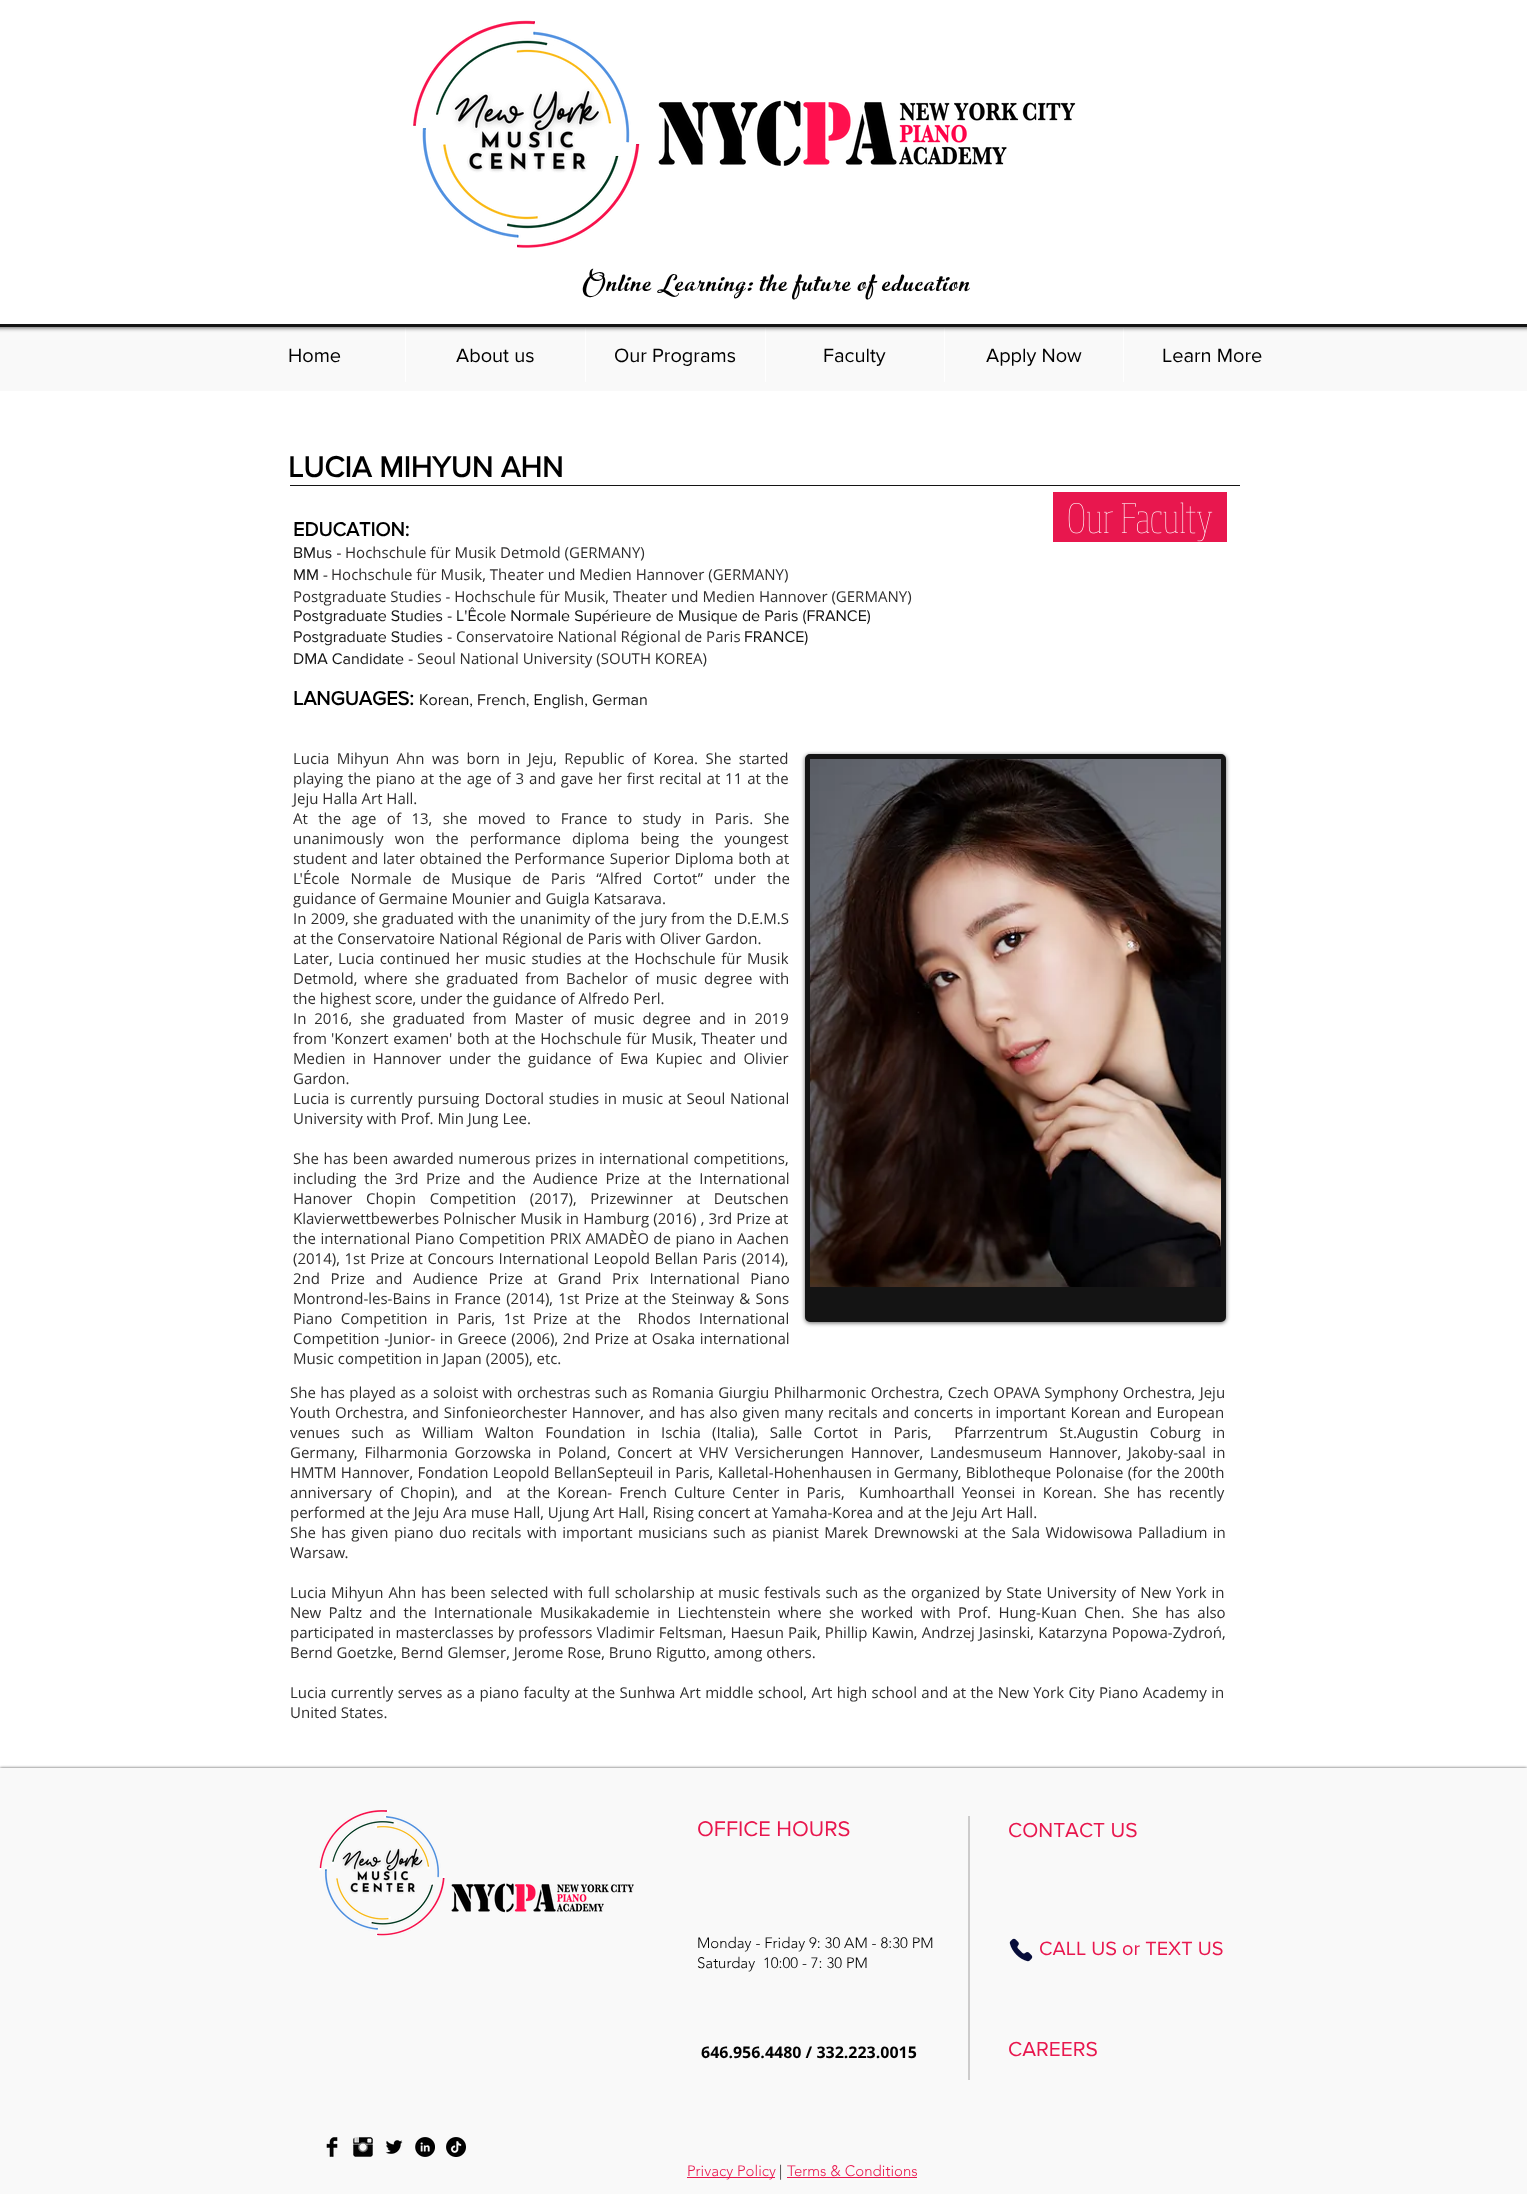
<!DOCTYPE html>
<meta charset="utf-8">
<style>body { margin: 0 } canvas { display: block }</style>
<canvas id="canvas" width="1527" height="2194"></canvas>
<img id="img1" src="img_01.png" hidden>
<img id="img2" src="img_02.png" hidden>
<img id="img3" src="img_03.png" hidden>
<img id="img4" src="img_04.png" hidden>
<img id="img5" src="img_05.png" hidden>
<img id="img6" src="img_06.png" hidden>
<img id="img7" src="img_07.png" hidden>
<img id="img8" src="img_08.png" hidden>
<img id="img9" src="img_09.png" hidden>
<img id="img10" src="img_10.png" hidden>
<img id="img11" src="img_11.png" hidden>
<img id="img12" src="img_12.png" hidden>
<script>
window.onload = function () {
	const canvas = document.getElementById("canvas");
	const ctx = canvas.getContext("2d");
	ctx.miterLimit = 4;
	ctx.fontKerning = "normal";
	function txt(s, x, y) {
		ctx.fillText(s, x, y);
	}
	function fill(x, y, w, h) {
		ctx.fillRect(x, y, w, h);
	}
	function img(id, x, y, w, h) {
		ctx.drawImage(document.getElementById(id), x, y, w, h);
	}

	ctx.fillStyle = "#F9F9F9";
	fill(0, 0, 1527, 2194);
	ctx.fillStyle = "#FFFFFF";
	fill(405, 328, 1, 54);
	fill(585, 328, 1, 54);
	fill(765, 328, 1, 54);
	fill(944, 328, 1, 54);
	fill(1123, 328, 1, 54);
	ctx.fillStyle = "rgba(0, 0, 0, 0.6)";
	ctx.filter = "blur(2px)";
	ctx.beginPath();
	ctx.rect(-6, -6, 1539, 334);
	ctx.fill();
	ctx.filter = "none";
	ctx.fillStyle = "#FFFFFF";
	ctx.beginPath();
	ctx.rect(-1.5, -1.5, 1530, 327);
	ctx.fill();
	ctx.strokeStyle = "#141414";
	ctx.lineWidth = 3;
	ctx.stroke();
	img("img1", 413, 20, 227, 228);
	img("img2", 658, 100, 418, 66);
	fill(0, 391, 1527, 1377);
	ctx.fillStyle = "#141414";
	fill(290, 485, 950, 1);
	ctx.fillStyle = "#E8174E";
	fill(1053, 492, 174, 50);
	img("img3", 1068, 502, 145, 40);
	ctx.fillStyle = "rgba(0, 0, 0, 0.6)";
	ctx.filter = "blur(2px)";
	ctx.beginPath();
	ctx.roundRect(805, 755, 421, 568, 5);
	ctx.fill();
	ctx.filter = "none";
	ctx.fillStyle = "#141414";
	ctx.beginPath();
	ctx.roundRect(807.5, 756.5, 416, 563, 2.5);
	ctx.fill();
	ctx.lineWidth = 5;
	ctx.stroke();
	img("img4", 810, 759, 411, 528);
	ctx.save();
	ctx.beginPath();
	ctx.rect(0, 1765, 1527, 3);
	ctx.clip();
	ctx.fillStyle = "rgba(0, 0, 0, 0.7)";
	ctx.filter = "blur(1.5px)";
	ctx.beginPath();
	ctx.rect(0, 1768, 1527, 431);
	ctx.fill();
	ctx.filter = "none";
	ctx.restore();
	img("img5", 319, 1810, 126, 126);
	ctx.fillStyle = "#CDCCCC";
	fill(968, 1816, 2, 264);
	img("img6", 451, 1883, 183, 30);
	img("img7", 1009, 1938, 24, 24);
	img("img8", 326, 2137, 12, 20);
	img("img9", 353, 2137, 20, 20);
	img("img10", 385, 2140, 18, 14);
	img("img11", 415, 2137, 20, 20);
	img("img12", 446, 2137, 20, 20);
	ctx.fillStyle = "#E8174E";
	fill(687, 2177, 88, 1);
	fill(787, 2177, 130, 1);
	ctx.letterSpacing = "1.75px";
	ctx.font = "italic 35px 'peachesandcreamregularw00'";
	ctx.fillStyle = "#000000";
	txt("Online Learning: the future of education", 582, 291);
	ctx.letterSpacing = "0px";
	ctx.font = "20px 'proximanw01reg'";
	txt("Home", 288, 362);
	txt("About us", 456, 362);
	txt("Our Programs", 614, 362);
	txt("Faculty", 823, 362);
	txt("Apply Now", 986, 362);
	txt("Learn More", 1162, 362);
	ctx.font = "bold 30px 'proximanw01reg'";
	txt("LUCIA MIHYUN AHN", 288, 477);
	ctx.font = "bold 20px 'proximanw01reg'";
	txt("EDUCATION:", 293, 536);
	ctx.font = "16px 'proximanw01reg'";
	ctx.fillStyle = "#141414";
	txt("BMus -", 293, 558);
	ctx.font = "15px Open Sans";
	ctx.fillStyle = "#2F2E2E";
	txt("Hochschule für Musik Detmold (GERMANY)", 345, 558);
	ctx.font = "16px 'proximanw01reg'";
	ctx.fillStyle = "#141414";
	txt("MM -", 293, 580);
	ctx.font = "15px Open Sans";
	ctx.fillStyle = "#2F2E2E";
	txt("Hochschule für Musik, Theater und Medien Hannover (GERMANY)", 331, 580);
	txt("Postgraduate Studies - Hochschule für Musik, Theater und Medien Hannover (GERMANY)", 293, 602);
	ctx.font = "16px 'proximanw01reg'";
	ctx.fillStyle = "#141414";
	txt("Postgraduate Studies - L'Êcole Normale Supérieure de Musique de Paris (FRANCE)", 293, 621);
	txt("Postgraduate Studies -", 293, 642);
	ctx.font = "15px Open Sans";
	ctx.fillStyle = "#2F2E2E";
	txt("Conservatoire National Régional de Paris", 456, 642);
	ctx.font = "16px 'proximanw01reg'";
	ctx.fillStyle = "#141414";
	txt("FRANCE)", 744, 642);
	txt("DMA Candidate -", 293, 664);
	ctx.font = "15px Open Sans";
	ctx.fillStyle = "#2F2E2E";
	txt("Seoul National University (SOUTH KOREA)", 417, 664);
	ctx.font = "bold 20px 'proximanw01reg'";
	ctx.fillStyle = "#000000";
	txt("LANGUAGES:", 293, 705);
	ctx.font = "16px 'proximanw01reg'";
	ctx.fillStyle = "#141414";
	txt("Korean, French, English, German", 419, 705);
	ctx.wordSpacing = "3.5px";
	ctx.font = "15px Open Sans";
	ctx.fillStyle = "#2F2E2E";
	txt("Lucia Mihyun Ahn was born in Jeju, Republic of Korea. She started", 293, 764);
	ctx.wordSpacing = "1px";
	txt("playing the piano at the age of 3 and gave her first recital at 11 at the", 293, 784);
	ctx.wordSpacing = "0px";
	txt("Jeju Halla Art Hall.", 293, 804);
	ctx.wordSpacing = "6.5px";
	txt("At the age of 13, she moved to France to study in Paris. She", 293, 824);
	ctx.wordSpacing = "7.25px";
	txt("unanimously won the performance diploma being the youngest", 293, 844);
	ctx.wordSpacing = "0.75px";
	txt("student and later obtained the Performance Superior Diploma both at", 293, 864);
	ctx.wordSpacing = "7px";
	txt("L'École Normale de Musique de Paris “Alfred Cortot” under the", 293, 884);
	ctx.wordSpacing = "0px";
	txt("guidance of Germaine Mounier and Guigla Katsarava.", 293, 904);
	ctx.wordSpacing = "0.4px";
	txt("In 2009, she graduated with the unanimity of the jury from the D.E.M.S", 293, 924);
	ctx.wordSpacing = "0px";
	txt("at the Conservatoire National Régional de Paris with Oliver Gardon.", 293, 944);
	ctx.wordSpacing = "1.5px";
	txt("Later, Lucia continued her music studies at the Hochschule für Musik", 293, 964);
	ctx.wordSpacing = "3px";
	txt("Detmold, where she graduated from Bachelor of music degree with", 293, 984);
	ctx.wordSpacing = "0px";
	txt("the highest score, under the guidance of Alfredo Perl.", 293, 1004);
	ctx.wordSpacing = "4px";
	txt("In 2016, she graduated from Master of music degree and in 2019", 293, 1024);
	ctx.wordSpacing = "0px";
	txt("from", 293, 1044);
	ctx.wordSpacing = "0.75px";
	txt("'Konzert examen' both at the Hochschule für Musik, Theater und", 331, 1044);
	ctx.wordSpacing = "3.25px";
	txt("Medien in Hannover under the guidance of Ewa Kupiec and Olivier", 293, 1064);
	ctx.wordSpacing = "0px";
	txt("Gardon.", 293, 1084);
	ctx.wordSpacing = "1px";
	txt("Lucia is currently pursuing Doctoral studies in music at Seoul National", 293, 1104);
	ctx.wordSpacing = "0px";
	txt("University with Prof. Min Jung Lee.", 293, 1124);
	ctx.wordSpacing = "0.75px";
	txt("She has been awarded numerous prizes in international competitions,", 293, 1164);
	ctx.wordSpacing = "3.75px";
	txt("including the 3rd Prize and the Audience Prize at the International", 293, 1184);
	ctx.wordSpacing = "9.75px";
	txt("Hanover Chopin Competition (2017), Prizewinner at Deutschen", 293, 1204);
	ctx.wordSpacing = "0.25px";
	txt("Klavierwettbewerbes Polnischer Musik in Hamburg (2016) , 3rd Prize at", 293, 1224);
	ctx.wordSpacing = "0.6px";
	txt("the international Piano Competition PRIX AMADÈO de piano in Aachen", 293, 1244);
	ctx.wordSpacing = "0.75px";
	txt("(2014), 1st Prize at Concours International Leopold Bellan Paris (2014),", 293, 1264);
	ctx.wordSpacing = "6.75px";
	txt("2nd Prize and Audience Prize at Grand Prix International Piano", 293, 1284);
	ctx.wordSpacing = "1.4px";
	txt("Montrond-les-Bains in France (2014), 1st Prize at the Steinway & Sons", 293, 1304);
	ctx.wordSpacing = "4.5px";
	txt("Piano Competition in Paris, 1st Prize at the  Rhodos International", 293, 1324);
	ctx.wordSpacing = "0.75px";
	txt("Competition -Junior- in Greece (2006), 2nd Prize at Osaka international", 293, 1344);
	ctx.wordSpacing = "0px";
	txt("Music competition in Japan (2005), etc.", 293, 1364);
	ctx.wordSpacing = "0.5px";
	txt("She has played as a soloist with orchestras such as Romania Giurgiu Philharmonic Orchestra, Czech OPAVA Symphony Orchestra, Jeju", 290, 1398);
	ctx.wordSpacing = "0.75px";
	txt("Youth Orchestra, and Sinfonieorchester Hannover, and has also given many recitals and concerts in important Korean and European", 290, 1418);
	ctx.wordSpacing = "7.4px";
	txt("venues such as William Walton Foundation in Ischia (Italia), Salle Cortot in Paris,  Pfarrzentrum St.Augustin Coburg in", 290, 1438);
	ctx.wordSpacing = "2.9px";
	txt("Germany, Filharmonia Gorzowska in Poland, Concert at VHV Versicherungen Hannover, Landesmuseum Hannover, Jakoby-saal in", 290, 1458);
	ctx.wordSpacing = "0.5px";
	txt("HMTM Hannover, Fondation Leopold BellanSepteuil in Paris, Kalletal-Hohenhausen in Germany, Biblotheque Polonaise (for the 200th", 290, 1478);
	ctx.wordSpacing = "3.25px";
	txt("anniversary of Chopin), and  at the Korean- French Culture Center in Paris,  Kumhoarthall Yeonsei in Korean. She has recently", 290, 1498);
	ctx.wordSpacing = "0px";
	txt("performed at the Jeju Ara muse Hall, Ujung Art Hall, Rising concert at Yamaha-Korea and at the Jeju Art Hall.", 290, 1518);
	ctx.wordSpacing = "1.5px";
	txt("She has given piano duo recitals with important musicians such as pianist Marek Drewnowski at the Sala Widowisowa Palladium in", 290, 1538);
	ctx.wordSpacing = "0px";
	txt("Warsaw.", 290, 1558);
	ctx.wordSpacing = "0.9px";
	txt("Lucia Mihyun Ahn has been selected with full scholarship at music festivals such as the organized by State University of New York in", 290, 1598);
	ctx.wordSpacing = "3.5px";
	txt("New Paltz and the Internationale Musikakademie in Liechtenstein where she worked with Prof. Hung-Kuan Chen. She has also", 290, 1618);
	ctx.wordSpacing = "0.25px";
	txt("participated in masterclasses by professors Vladimir Feltsman, Haesun Paik, Phillip Kawin, Andrzej Jasinski, Katarzyna Popowa-Zydroń,", 290, 1638);
	ctx.wordSpacing = "0px";
	txt("Bernd Goetzke, Bernd Glemser, Jerome Rose, Bruno Rigutto, among others.", 290, 1658);
	ctx.wordSpacing = "0.5px";
	txt("Lucia currently serves as a piano faculty at the Sunhwa Art middle school, Art high school and at the New York City Piano Academy in", 290, 1698);
	ctx.wordSpacing = "0px";
	txt("United States.", 290, 1718);
	ctx.font = "22px 'proximanw01reg'";
	ctx.fillStyle = "#E8174E";
	txt("OFFICE HOURS", 697, 1836);
	ctx.font = "21px 'proximanw01reg'";
	txt("CONTACT US", 1008, 1837);
	ctx.font = "300 15px 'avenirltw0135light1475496'";
	ctx.fillStyle = "#000000";
	txt("Monday - Friday 9: 30 AM - 8:30 PM", 697, 1948);
	txt("Saturday  10:00 - 7: 30 PM", 697, 1968);
	ctx.font = "20px 'proximanw01reg'";
	ctx.fillStyle = "#E8174E";
	txt("CALL US or TEXT US", 1039, 1955);
	ctx.font = "bold 16px Open Sans";
	ctx.fillStyle = "#000000";
	txt("646.956.4480 / 332.223.0015", 701, 2058);
	ctx.font = "21px 'proximanw01reg'";
	ctx.fillStyle = "#E8174E";
	txt("CAREERS", 1008, 2056);
	ctx.font = "300 15px 'avenirltw0135light1475496'";
	txt("Privacy Policy", 687, 2176);
	ctx.fillStyle = "#141414";
	txt("|", 779, 2176);
	ctx.fillStyle = "#E8174E";
	txt("Terms & Conditions", 787, 2176);
};
</script>
